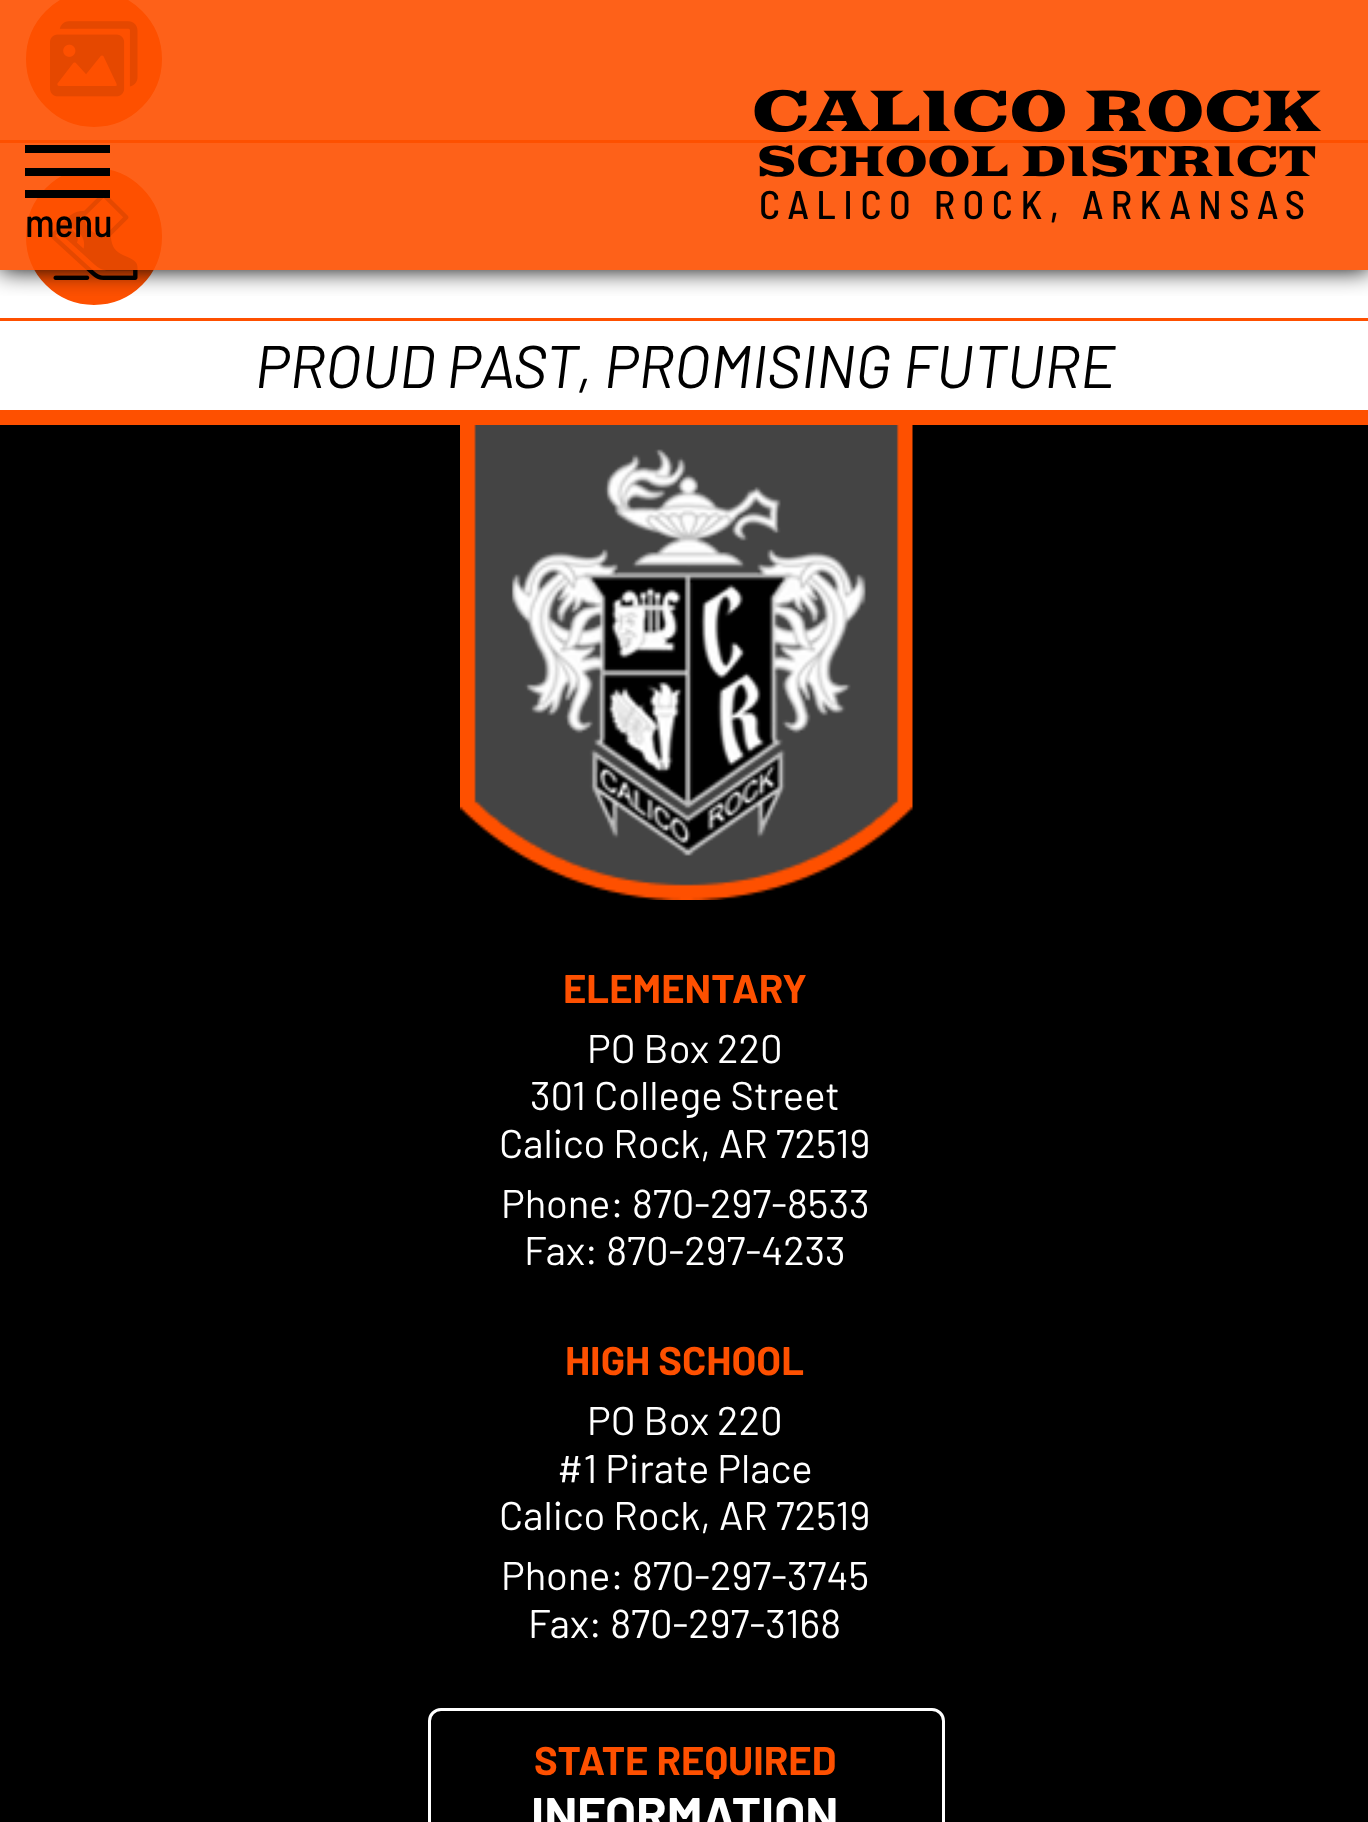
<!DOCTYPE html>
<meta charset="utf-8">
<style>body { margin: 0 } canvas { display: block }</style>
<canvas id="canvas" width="1368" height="1822"></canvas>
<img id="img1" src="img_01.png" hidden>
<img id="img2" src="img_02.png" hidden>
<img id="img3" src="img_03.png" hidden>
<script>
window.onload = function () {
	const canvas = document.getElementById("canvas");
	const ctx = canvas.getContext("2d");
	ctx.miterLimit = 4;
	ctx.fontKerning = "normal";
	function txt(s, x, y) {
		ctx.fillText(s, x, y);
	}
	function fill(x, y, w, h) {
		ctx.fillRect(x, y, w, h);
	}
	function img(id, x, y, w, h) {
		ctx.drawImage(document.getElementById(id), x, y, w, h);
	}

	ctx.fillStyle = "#FFFFFF";
	fill(0, 0, 1368, 1822);
	ctx.fillStyle = "#FE5000";
	fill(0, 140, 1368, 3);
	ctx.beginPath();
	ctx.arc(94, 59, 74.5, 0, Math.PI * 2);
	ctx.fill();
	ctx.strokeStyle = "#FFFFFF";
	ctx.lineWidth = 13;
	ctx.stroke();
	img("img1", 50, 21, 88, 76);
	ctx.beginPath();
	ctx.roundRect(19.5, 161.5, 149, 150, 74.5);
	ctx.fill();
	ctx.stroke();
	img("img2", 50, 198, 88, 82);
	ctx.save();
	ctx.beginPath();
	ctx.rect(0, 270, 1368, 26);
	ctx.clip();
	ctx.fillStyle = "#000000";
	ctx.filter = "blur(12.5px)";
	ctx.beginPath();
	ctx.rect(0, 0, 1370, 270);
	ctx.fill();
	ctx.filter = "none";
	ctx.restore();
	ctx.fillStyle = "rgba(254, 80, 0, 0.9)";
	fill(0, 0, 1368, 270);
	ctx.fillStyle = "#000000";
	fill(25, 145, 85, 8);
	fill(25, 168, 85, 8);
	fill(25, 190, 85, 8);
	ctx.fillStyle = "#FE5000";
	fill(0, 318, 1368, 3);
	ctx.fillStyle = "#000000";
	fill(0, 425, 1368, 1397);
	ctx.fillStyle = "#FE5000";
	fill(0, 410, 1368, 15);
	img("img3", 460, 425, 453, 475);
	ctx.beginPath();
	ctx.roundRect(429.5, 1709.5, 514, 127, 11.5);
	ctx.lineWidth = 3;
	ctx.stroke();
	ctx.font = "57.5px Goblin One";
	ctx.fillStyle = "#000000";
	txt("CALICO ROCK", 752, 131);
	ctx.font = "42.5px Goblin One";
	txt("SCHOOL DISTRICT", 756, 176);
	ctx.letterSpacing = "7.5px";
	ctx.font = "500 40px Barlow Semi Condensed";
	txt("CALICO ROCK, ARKANSAS", 759, 219);
	ctx.letterSpacing = "0px";
	txt("menu", 25, 237);
	ctx.font = "italic 60px Barlow";
	txt("PROUD PAST, PROMISING FUTURE", 255, 388);
	ctx.font = "bold 40px Barlow";
	ctx.fillStyle = "#FE5000";
	txt("ELEMENTARY", 563, 1003);
	ctx.font = "40px Barlow";
	ctx.fillStyle = "#FFFFFF";
	txt("PO Box 220", 587, 1063);
	txt("301 College Street", 530, 1110);
	txt("Calico Rock, AR 72519", 499, 1158);
	txt("Phone: 870-297-8533", 501, 1218);
	txt("Fax: 870-297-4233", 524, 1265);
	ctx.font = "bold 40px Barlow";
	ctx.fillStyle = "#FE5000";
	txt("HIGH SCHOOL", 565, 1375);
	ctx.font = "40px Barlow";
	ctx.fillStyle = "#FFFFFF";
	txt("PO Box 220", 587, 1435);
	txt("#1 Pirate Place", 557, 1483);
	txt("Calico Rock, AR 72519", 499, 1530);
	txt("Phone: 870-297-3745", 501, 1590);
	txt("Fax: 870-297-3168", 528, 1638);
	ctx.font = "bold 40px Barlow";
	ctx.fillStyle = "#FE5000";
	txt("STATE REQUIRED", 534, 1775);
	ctx.font = "bold 50px Barlow";
	ctx.fillStyle = "#FFFFFF";
	txt("INFORMATION", 531, 1833);
};
</script>
